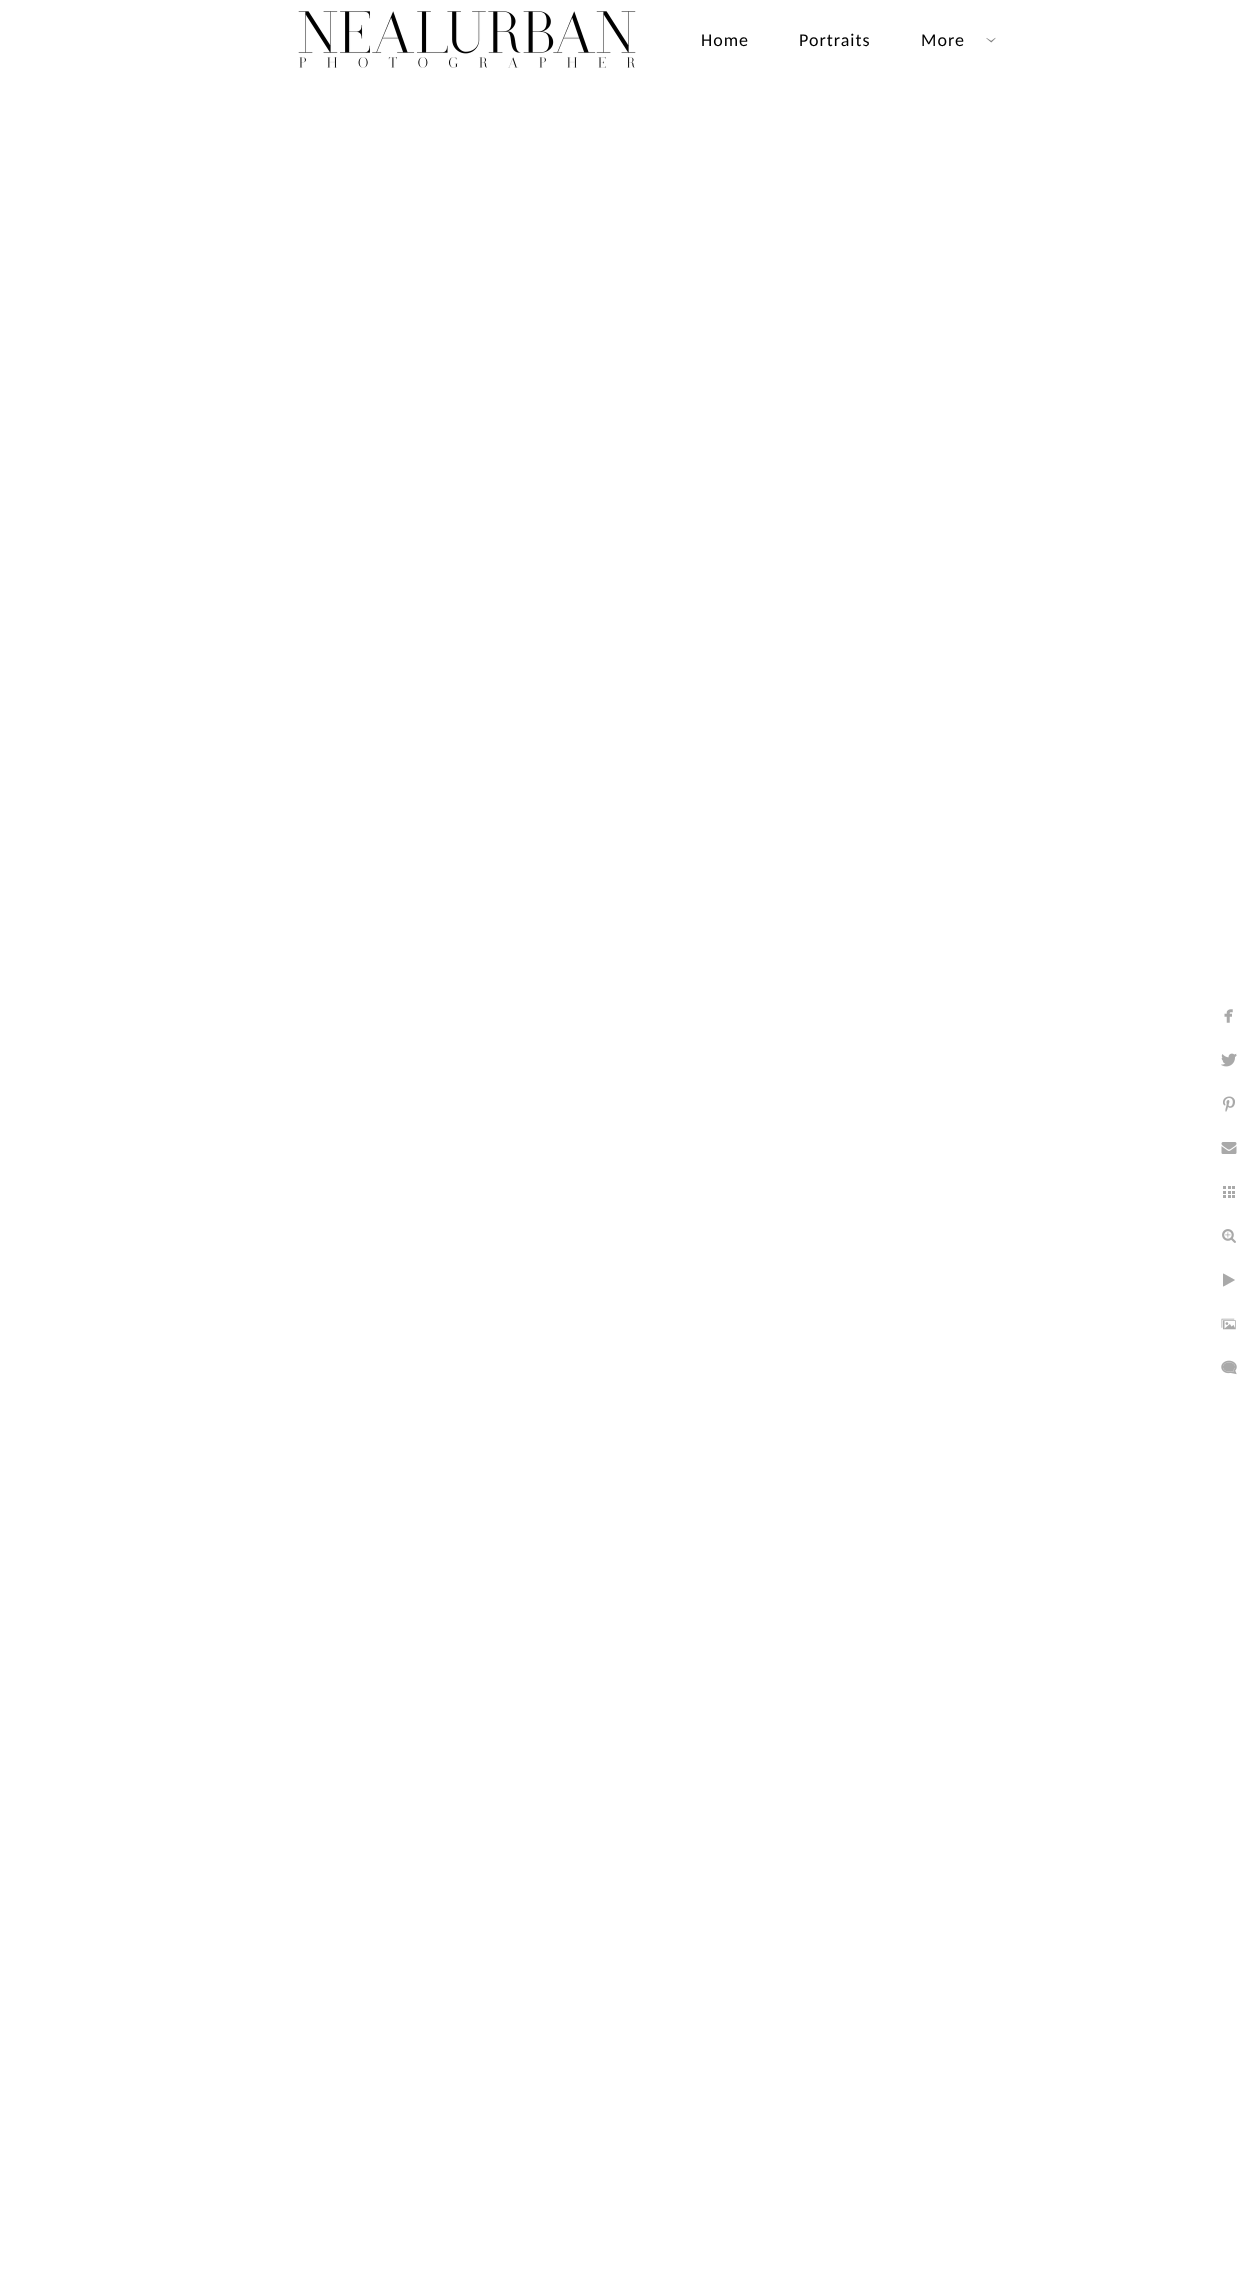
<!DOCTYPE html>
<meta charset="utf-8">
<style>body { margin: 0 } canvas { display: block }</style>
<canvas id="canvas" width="1256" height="2284"></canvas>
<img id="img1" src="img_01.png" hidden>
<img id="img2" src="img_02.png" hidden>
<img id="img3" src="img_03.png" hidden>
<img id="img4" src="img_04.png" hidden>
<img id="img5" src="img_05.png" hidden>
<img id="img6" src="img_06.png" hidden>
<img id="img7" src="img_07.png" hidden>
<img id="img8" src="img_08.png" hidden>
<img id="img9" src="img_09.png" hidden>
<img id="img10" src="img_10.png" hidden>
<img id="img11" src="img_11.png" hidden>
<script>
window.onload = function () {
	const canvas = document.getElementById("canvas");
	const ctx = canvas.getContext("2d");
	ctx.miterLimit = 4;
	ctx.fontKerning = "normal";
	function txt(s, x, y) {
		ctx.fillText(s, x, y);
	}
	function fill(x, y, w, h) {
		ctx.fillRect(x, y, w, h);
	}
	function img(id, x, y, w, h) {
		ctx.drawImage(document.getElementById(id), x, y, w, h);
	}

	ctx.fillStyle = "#FFFFFF";
	fill(0, 0, 1256, 2284);
	img("img1", 298, 11, 338, 57);
	img("img2", 986, 37, 10, 6);
	img("img3", 1224, 1009, 9, 14);
	img("img4", 1221, 1053, 16, 14);
	img("img5", 1223, 1096, 12, 16);
	img("img6", 1221, 1142, 16, 12);
	img("img7", 1223, 1186, 12, 12);
	img("img8", 1222, 1229, 14, 14);
	img("img9", 1223, 1273, 12, 14);
	img("img10", 1221, 1318, 15, 12);
	img("img11", 1221, 1360, 16, 15);
	ctx.letterSpacing = "1px";
	ctx.font = "18px Carlito";
	ctx.fillStyle = "#000000";
	txt("Home", 701, 46);
	txt("Portraits", 799, 46);
	txt("More", 921, 46);
};
</script>
